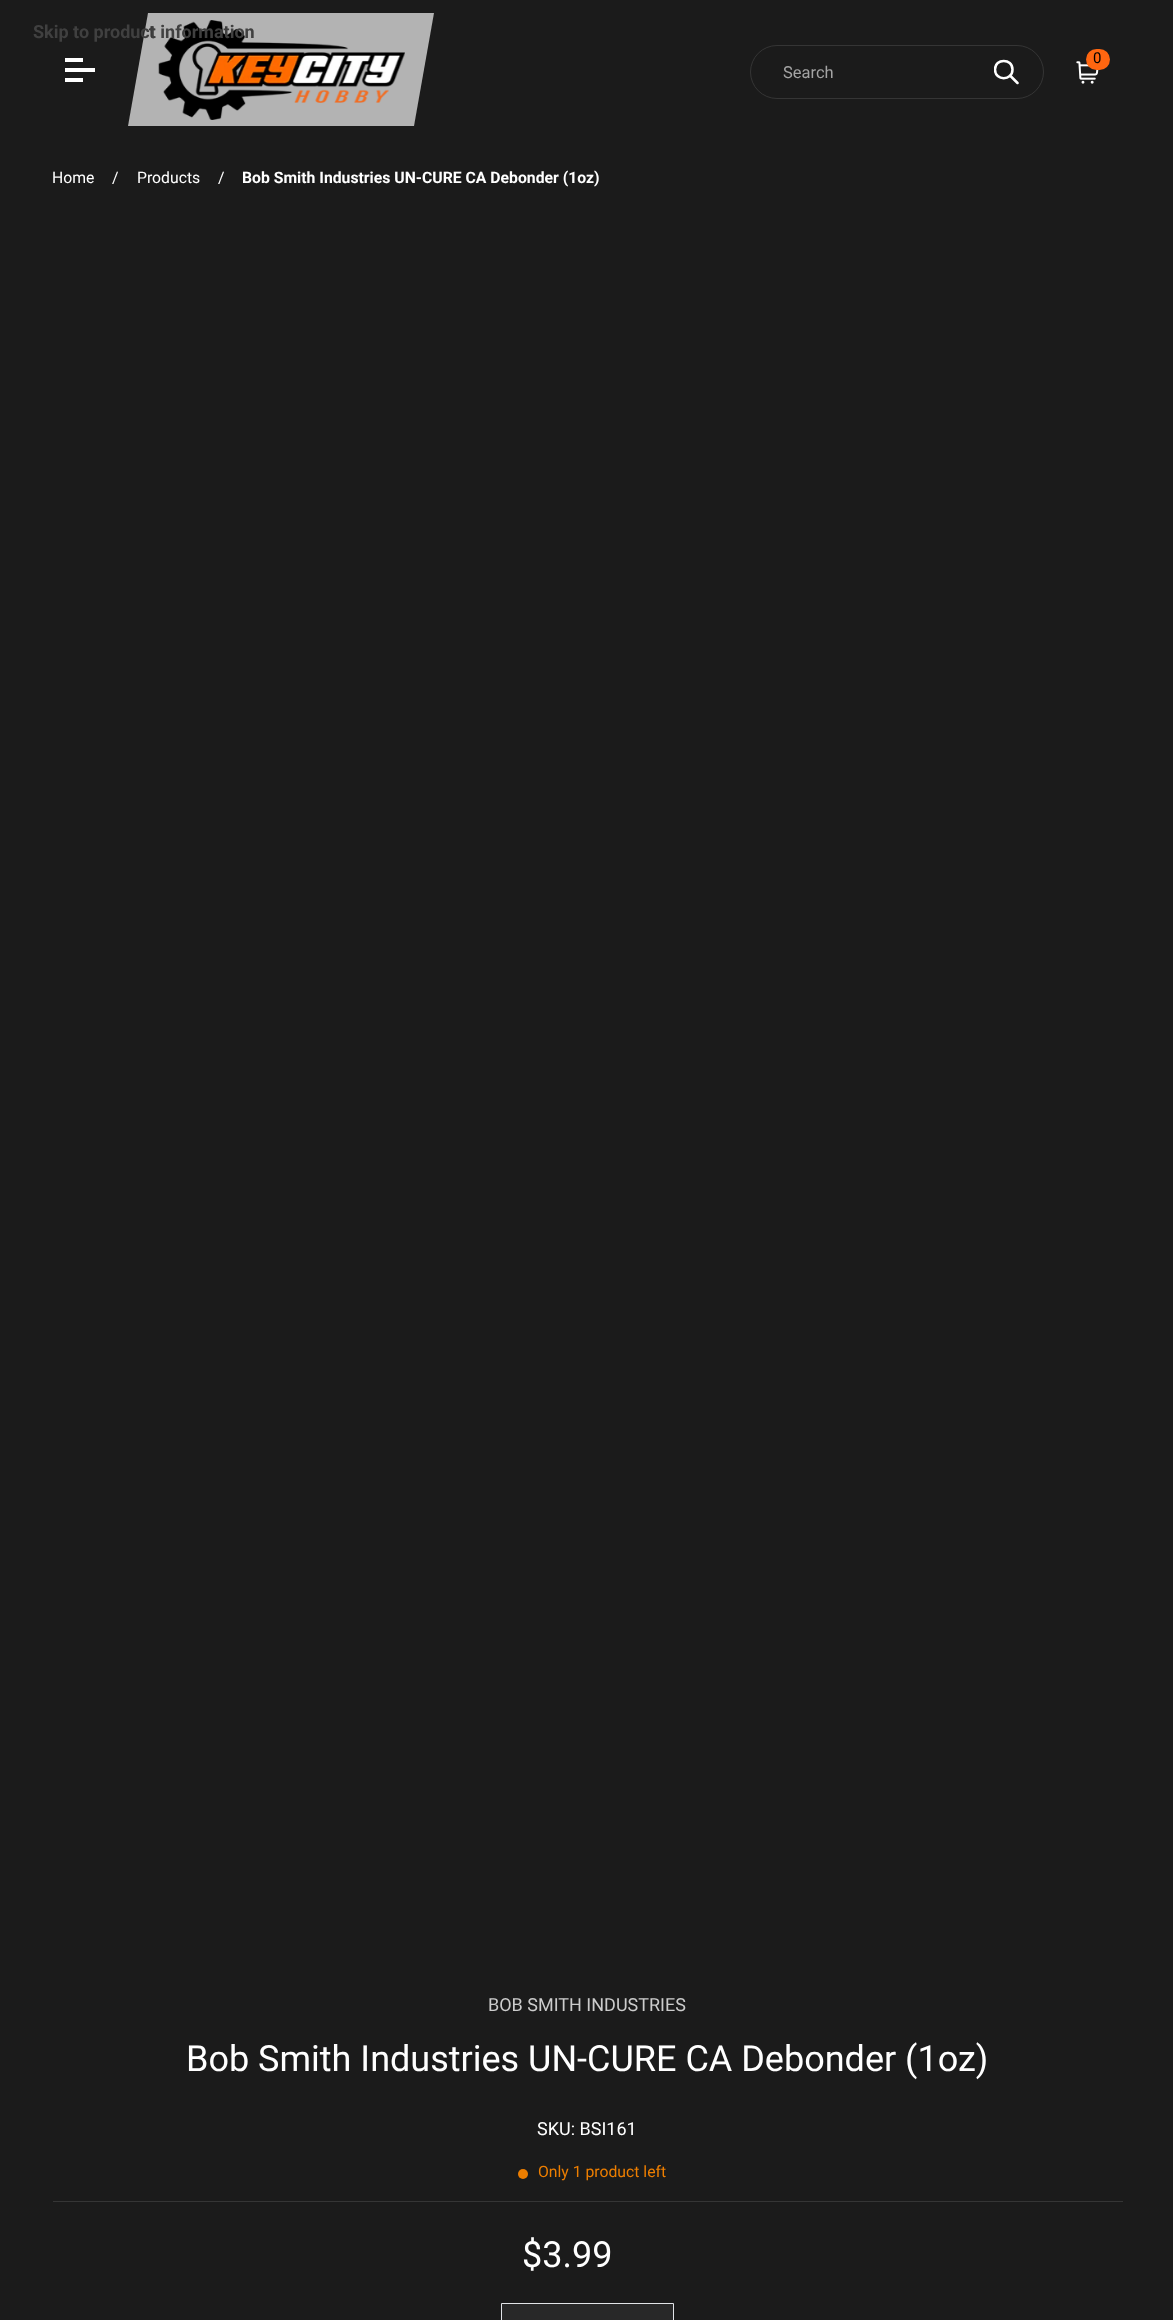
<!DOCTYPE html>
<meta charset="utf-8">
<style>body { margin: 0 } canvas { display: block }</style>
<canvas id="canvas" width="1173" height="2320"></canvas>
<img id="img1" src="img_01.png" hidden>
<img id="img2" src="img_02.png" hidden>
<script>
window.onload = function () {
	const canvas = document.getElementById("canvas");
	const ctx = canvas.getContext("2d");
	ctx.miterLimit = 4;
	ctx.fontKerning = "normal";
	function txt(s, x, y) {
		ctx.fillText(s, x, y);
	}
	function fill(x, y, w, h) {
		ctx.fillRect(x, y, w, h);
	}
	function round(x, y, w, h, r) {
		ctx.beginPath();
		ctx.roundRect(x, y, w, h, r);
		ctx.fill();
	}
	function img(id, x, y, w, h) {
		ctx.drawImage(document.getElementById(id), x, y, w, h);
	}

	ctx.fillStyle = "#1B1B1B";
	fill(0, 0, 1173, 2320);
	ctx.fillStyle = "#ED7E00";
	ctx.beginPath();
	ctx.arc(523, 2174, 5, 0, Math.PI * 2);
	ctx.fill();
	ctx.fillStyle = "#353535";
	fill(53, 2201, 1070, 1);
	ctx.fillStyle = "#282828";
	ctx.beginPath();
	ctx.rect(501.5, 2303.5, 172, 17);
	ctx.fill();
	ctx.strokeStyle = "#E2E4E8";
	ctx.stroke();
	ctx.fillStyle = "#FFFFFF";
	fill(65, 58, 18, 4);
	fill(65, 68, 30, 4);
	fill(65, 78, 18, 4);
	ctx.fillStyle = "#B3B3B3";
	ctx.beginPath();
	ctx.moveTo(148, 13);
	ctx.lineTo(434, 13);
	ctx.lineTo(414, 126);
	ctx.lineTo(128, 126);
	ctx.closePath();
	ctx.fill();
	img("img1", 158, 20, 247, 100);
	ctx.beginPath();
	ctx.roundRect(750.5, 45.5, 293, 53, 26.5);
	ctx.strokeStyle = "#353535";
	ctx.stroke();
	ctx.save();
	ctx.beginPath();
	ctx.rect(994, 58, 25, 28);
	ctx.clip();
	ctx.beginPath();
	ctx.moveTo(1017.5, 83);
	ctx.lineTo(1010, 75.5);
	ctx.moveTo(1012.5, 69.5);
	ctx.bezierCurveTo(1012.5, 81, 995, 81, 995, 69.5);
	ctx.bezierCurveTo(995, 58, 1012.5, 58, 1012.5, 69.5);
	ctx.closePath();
	ctx.strokeStyle = "#FFFFFF";
	ctx.lineWidth = 2.5;
	ctx.lineCap = "round";
	ctx.lineJoin = "round";
	ctx.stroke();
	ctx.restore();
	img("img2", 1076, 61, 23, 23);
	ctx.fillStyle = "#FF6610";
	round(1086, 49, 24, 21, 10.5);
	ctx.font = "18px Roboto";
	ctx.fillStyle = "#CCCCCC";
	txt("BOB SMITH INDUSTRIES", 488, 2011);
	ctx.font = "36px Roboto";
	ctx.fillStyle = "#FFFFFF";
	txt("Bob Smith Industries UN-CURE CA Debonder (1oz)", 186, 2071);
	ctx.font = "18px Roboto";
	txt("SKU: BSI161", 537, 2135);
	ctx.font = "15.75px Roboto";
	ctx.fillStyle = "#ED7E00";
	txt("Only 1 product left", 538, 2177);
	ctx.font = "36px Roboto";
	ctx.fillStyle = "#FFFFFF";
	txt("$3.99", 522, 2267);
	ctx.font = "bold 18px Roboto";
	ctx.fillStyle = "#2B2B2B";
	txt("t", 149, 38);
	ctx.fillStyle = "#404040";
	txt("Skip to product information", 33, 38);
	ctx.font = "16.5px Roboto";
	ctx.fillStyle = "#A4A4A4";
	txt("Search", 783, 78);
	ctx.font = "15px Roboto";
	ctx.fillStyle = "#000000";
	txt("0", 1093, 63);
	ctx.font = "15.75px Roboto";
	ctx.fillStyle = "#FFFFFF";
	txt("Home", 52, 183);
	txt("/", 112, 183);
	txt("Products", 137, 183);
	txt("/", 218, 183);
	ctx.font = "bold 15.75px Roboto";
	txt("Bob Smith Industries UN-CURE CA Debonder (1oz)", 242, 183);
};
</script>
